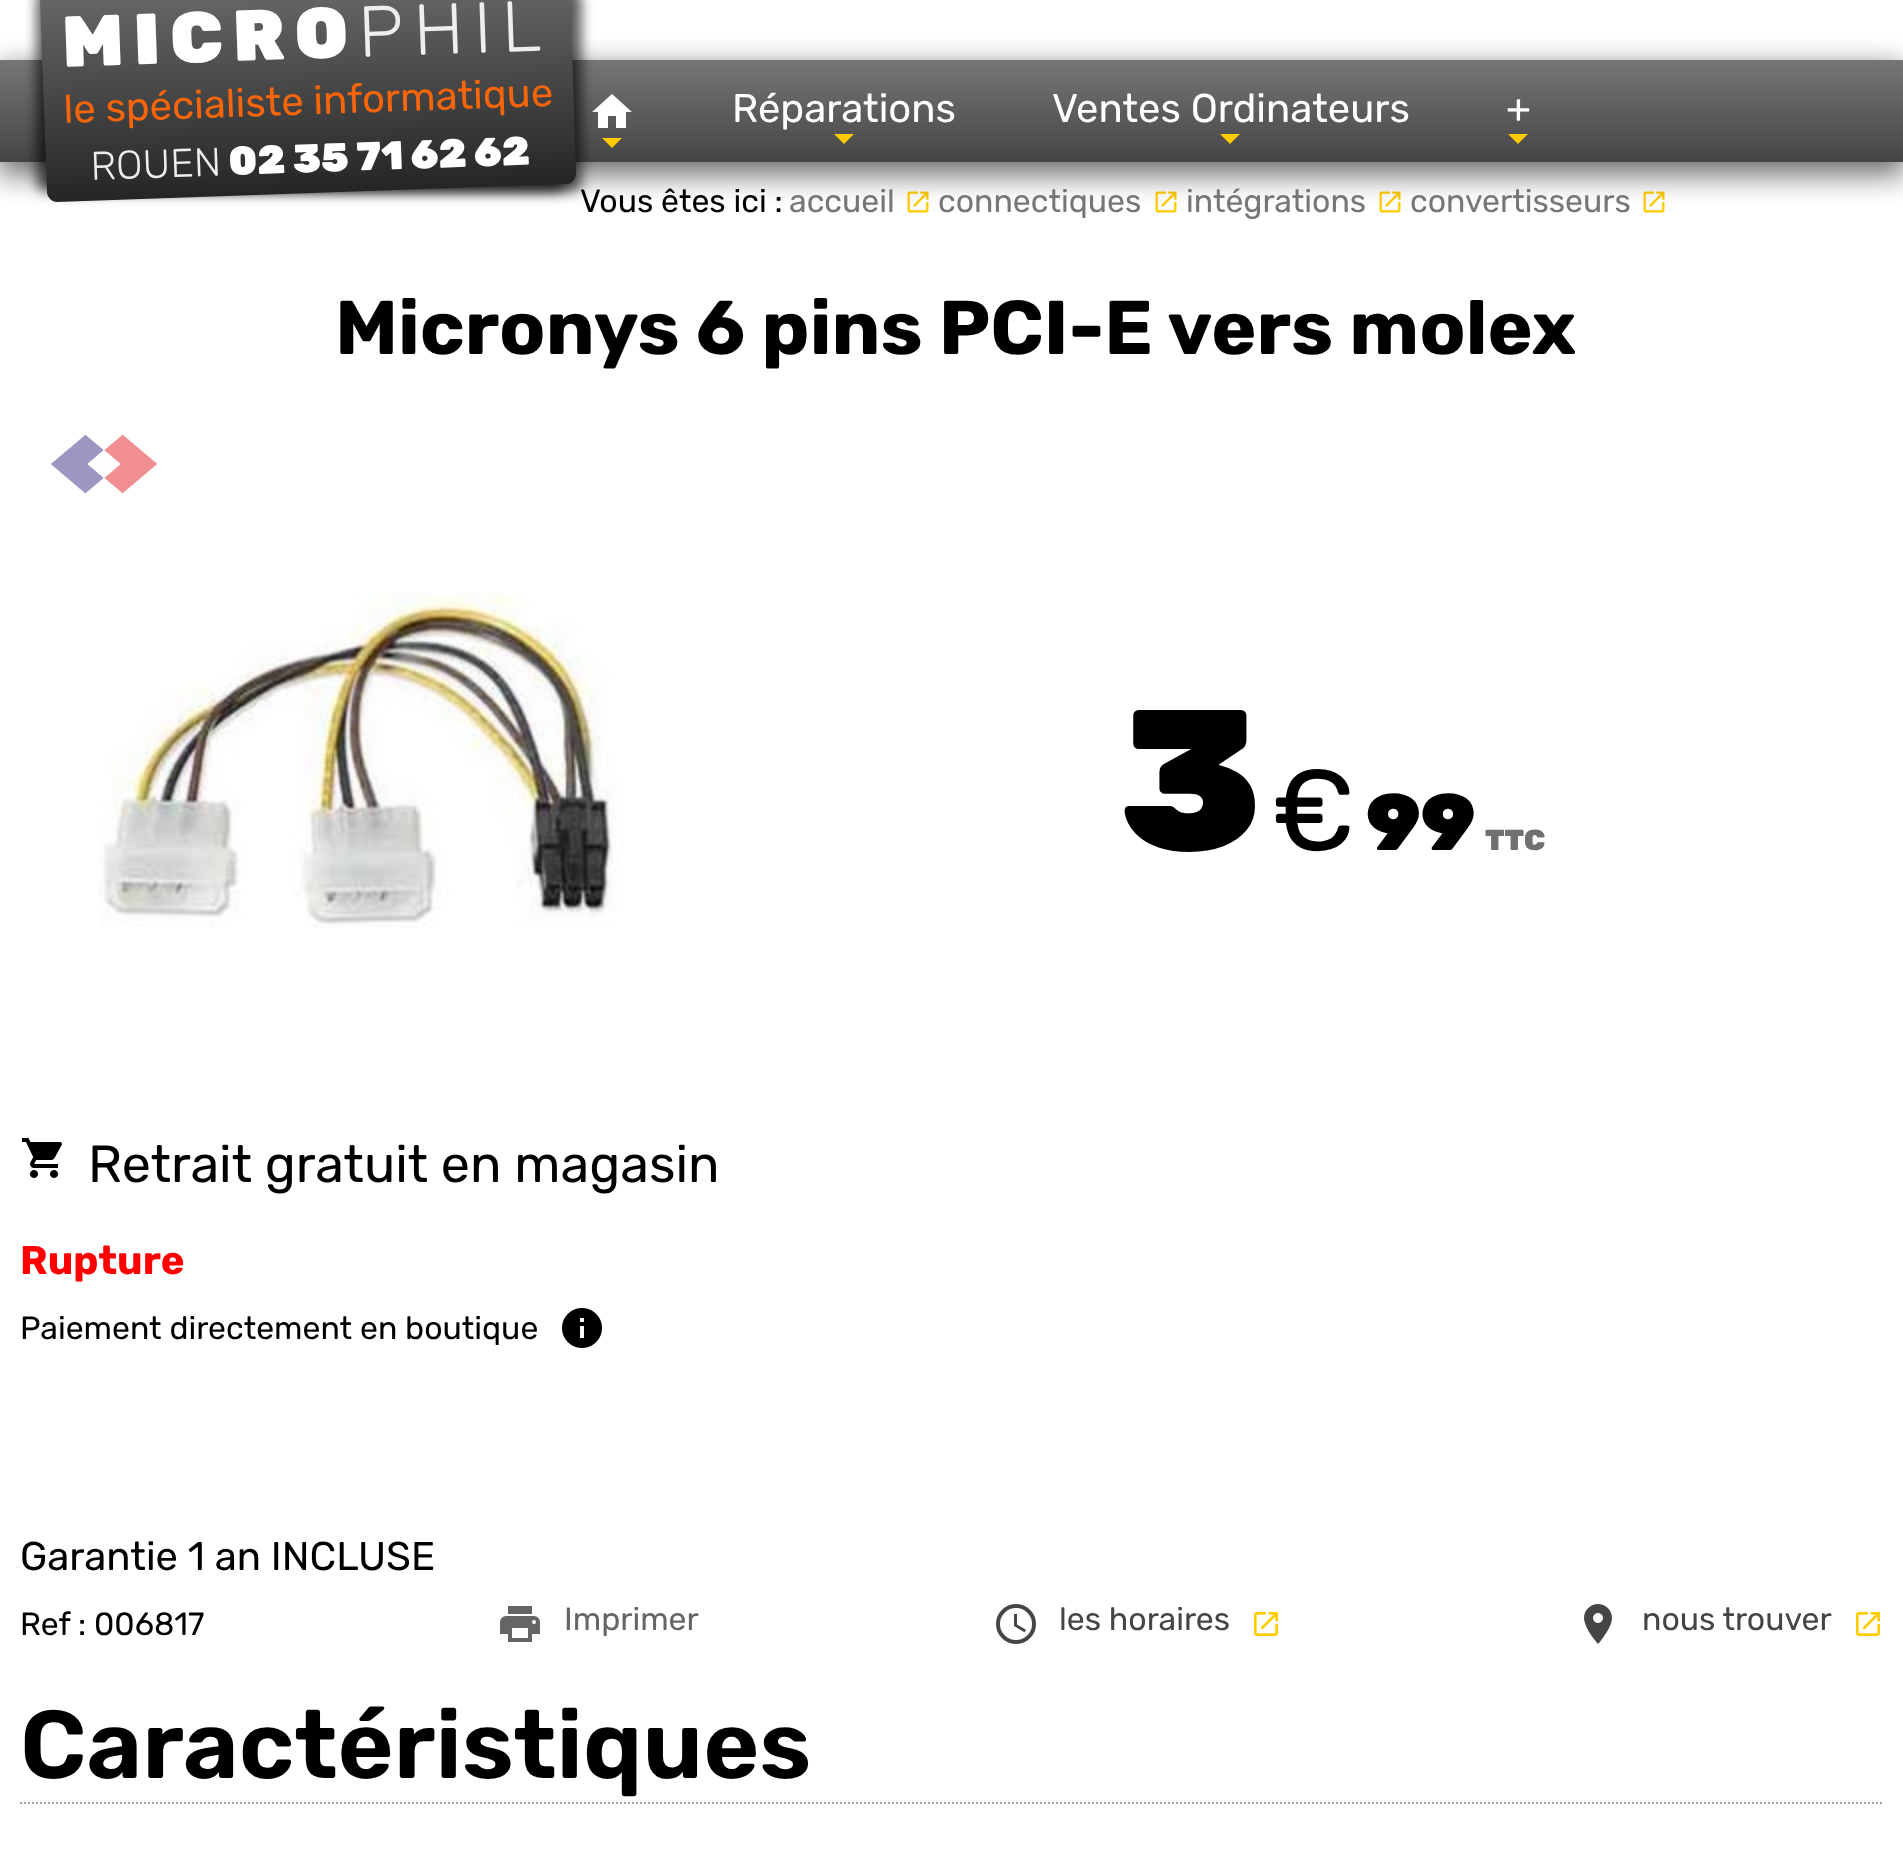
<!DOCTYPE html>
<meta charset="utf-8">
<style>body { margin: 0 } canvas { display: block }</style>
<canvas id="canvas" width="1903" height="1870"></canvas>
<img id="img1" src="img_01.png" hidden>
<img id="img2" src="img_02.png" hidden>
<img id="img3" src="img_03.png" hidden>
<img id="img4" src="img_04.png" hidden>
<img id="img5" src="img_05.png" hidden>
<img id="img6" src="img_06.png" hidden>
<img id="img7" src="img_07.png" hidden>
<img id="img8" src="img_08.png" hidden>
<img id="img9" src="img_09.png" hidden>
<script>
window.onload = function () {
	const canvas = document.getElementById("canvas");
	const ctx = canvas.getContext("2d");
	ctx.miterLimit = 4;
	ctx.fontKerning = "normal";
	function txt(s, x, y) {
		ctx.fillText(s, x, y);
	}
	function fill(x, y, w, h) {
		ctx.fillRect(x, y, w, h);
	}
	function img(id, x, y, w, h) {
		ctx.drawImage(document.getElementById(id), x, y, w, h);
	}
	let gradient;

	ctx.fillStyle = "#FFFFFF";
	fill(0, 0, 1903, 1870);
	img("img1", 907, 191, 22, 22);
	img("img1", 1155, 191, 22, 22);
	img("img1", 1379, 191, 22, 22);
	img("img1", 1643, 191, 22, 22);
	ctx.fillStyle = "rgba(0, 0, 0, 0.6)";
	ctx.filter = "blur(15px)";
	ctx.beginPath();
	ctx.rect(-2, 68, 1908, 106);
	ctx.fill();
	ctx.filter = "none";
	gradient = ctx.createLinearGradient(952, 60, 952, 162);
	gradient.addColorStop(0, "#767676");
	gradient.addColorStop(1, "#454545");
	ctx.fillStyle = gradient;
	fill(0, 60, 1903, 102);
	ctx.fillStyle = "#FFFFFF";
	ctx.beginPath();
	ctx.moveTo(608, 128);
	ctx.lineTo(608, 116);
	ctx.lineTo(616, 116);
	ctx.lineTo(616, 128);
	ctx.lineTo(626, 128);
	ctx.lineTo(626, 112);
	ctx.lineTo(632, 112);
	ctx.lineTo(612, 94);
	ctx.lineTo(592, 112);
	ctx.lineTo(598, 112);
	ctx.lineTo(598, 128);
	ctx.closePath();
	ctx.fill();
	ctx.fillStyle = "rgba(0, 0, 0, 0.6)";
	ctx.filter = "blur(6px)";
	ctx.beginPath();
	ctx.roundRect(52, -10, 530, 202, 10);
	ctx.fill();
	ctx.filter = "none";
	ctx.filter = "blur(6px)";
	ctx.beginPath();
	ctx.roundRect(36, -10, 530, 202, 10);
	ctx.fill();
	ctx.filter = "none";
	gradient = ctx.createLinearGradient(305, -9, 312, 193);
	gradient.addColorStop(0, "#666666");
	gradient.addColorStop(1, "#252525");
	ctx.fillStyle = gradient;
	ctx.beginPath();
	ctx.moveTo(40, 0);
	ctx.lineTo(570, -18);
	ctx.lineTo(576, 173);
	ctx.bezierCurveTo(576, 179, 572, 184, 567, 184);
	ctx.lineTo(57, 202);
	ctx.bezierCurveTo(52, 202, 47, 197, 47, 192);
	ctx.closePath();
	ctx.fill();
	ctx.fillStyle = "#FFCC00";
	ctx.beginPath();
	ctx.moveTo(602, 138);
	ctx.lineTo(622, 138);
	ctx.lineTo(612, 148);
	ctx.closePath();
	ctx.fill();
	ctx.beginPath();
	ctx.moveTo(834, 134);
	ctx.lineTo(854, 134);
	ctx.lineTo(844, 144);
	ctx.closePath();
	ctx.fill();
	ctx.beginPath();
	ctx.moveTo(1220, 134);
	ctx.lineTo(1240, 134);
	ctx.lineTo(1230, 144);
	ctx.closePath();
	ctx.fill();
	ctx.beginPath();
	ctx.moveTo(1508, 134);
	ctx.lineTo(1528, 134);
	ctx.lineTo(1518, 144);
	ctx.closePath();
	ctx.fill();
	img("img2", 50, 434, 108, 60);
	img("img3", 98, 592, 526, 336);
	img("img4", 21, 1138, 41, 40);
	img("img5", 562, 1308, 40, 40);
	img("img6", 500, 1606, 40, 36);
	img("img7", 996, 1604, 40, 40);
	img("img8", 1254, 1612, 24, 24);
	img("img9", 1584, 1604, 28, 40);
	img("img8", 1856, 1612, 24, 24);
	ctx.beginPath();
	ctx.moveTo(20, 1803);
	ctx.lineTo(1884, 1803);
	ctx.strokeStyle = "#A0A0A0";
	ctx.lineWidth = 2;
	ctx.setLineDash([2, 2]);
	ctx.stroke();
	ctx.letterSpacing = "10px";
	ctx.font = "900 72px Rubik";
	ctx.fillStyle = "#FFFFFF";
	ctx.save();
	ctx.translate(63, 67);
	ctx.rotate(-2 * Math.PI / 180);
	ctx.fillText("MICRO", 0, 0);
	ctx.restore();
	ctx.font = "300 72px Rubik";
	ctx.fillStyle = "#EEEEEE";
	ctx.save();
	ctx.translate(359, 57);
	ctx.rotate(-2 * Math.PI / 180);
	ctx.fillText("PHIL", 0, 0);
	ctx.restore();
	ctx.letterSpacing = "0px";
	ctx.font = "40px Rubik";
	ctx.fillStyle = "#F5650C";
	ctx.save();
	ctx.translate(64, 123);
	ctx.rotate(-2 * Math.PI / 180);
	ctx.fillText("le spécialiste informatique", 0, 0);
	ctx.restore();
	ctx.font = "300 40px Rubik";
	ctx.fillStyle = "#EEEEEE";
	ctx.save();
	ctx.translate(91, 180);
	ctx.rotate(-2 * Math.PI / 180);
	ctx.fillText("ROUEN", 0, 0);
	ctx.restore();
	ctx.font = "900 40px Rubik";
	ctx.fillStyle = "#FFFFFF";
	ctx.save();
	ctx.translate(229, 175);
	ctx.rotate(-2 * Math.PI / 180);
	ctx.fillText("02 35 71 62 62", 0, 0);
	ctx.restore();
	ctx.font = "40px Rubik";
	txt("Réparations", 732, 122);
	txt("Ventes Ordinateurs", 1052, 122);
	txt("+", 1506, 122);
	ctx.font = "32px Rubik";
	ctx.fillStyle = "#000000";
	txt("Vous êtes ici :", 580, 212);
	ctx.fillStyle = "#767676";
	txt("accueil", 789, 212);
	txt("connectiques", 938, 212);
	txt("intégrations", 1186, 212);
	txt("convertisseurs", 1410, 212);
	ctx.font = "bold 76.2px Rubik";
	ctx.fillStyle = "#000000";
	txt("Micronys 6 pins PCI-E vers molex", 335, 354);
	ctx.font = "900 200px Rubik";
	txt("3", 1120, 850);
	ctx.font = "114px Rubik";
	txt("€", 1271, 850);
	ctx.font = "900 80px Rubik";
	txt("99", 1366, 850);
	ctx.font = "900 29px Rubik";
	ctx.fillStyle = "#707070";
	txt("TTC", 1485, 850);
	ctx.font = "52px Rubik";
	ctx.fillStyle = "#000000";
	txt("Retrait gratuit en magasin", 88, 1182);
	ctx.font = "bold 40px Rubik";
	ctx.fillStyle = "#FF0000";
	txt("Rupture", 20, 1274);
	ctx.font = "32px Rubik";
	ctx.fillStyle = "#000000";
	txt("Paiement directement en boutique", 20, 1339);
	ctx.font = "40px Rubik";
	txt("Garantie 1 an INCLUSE", 20, 1570);
	ctx.font = "32px Rubik";
	txt("Ref : 006817", 20, 1635);
	ctx.fillStyle = "#656565";
	txt("Imprimer", 564, 1630);
	ctx.fillStyle = "#454545";
	txt("les horaires", 1059, 1630);
	txt("nous trouver", 1642, 1630);
	ctx.font = "600 96px Rubik";
	ctx.fillStyle = "#000000";
	txt("Caractéristiques", 20, 1778);
};
</script>
